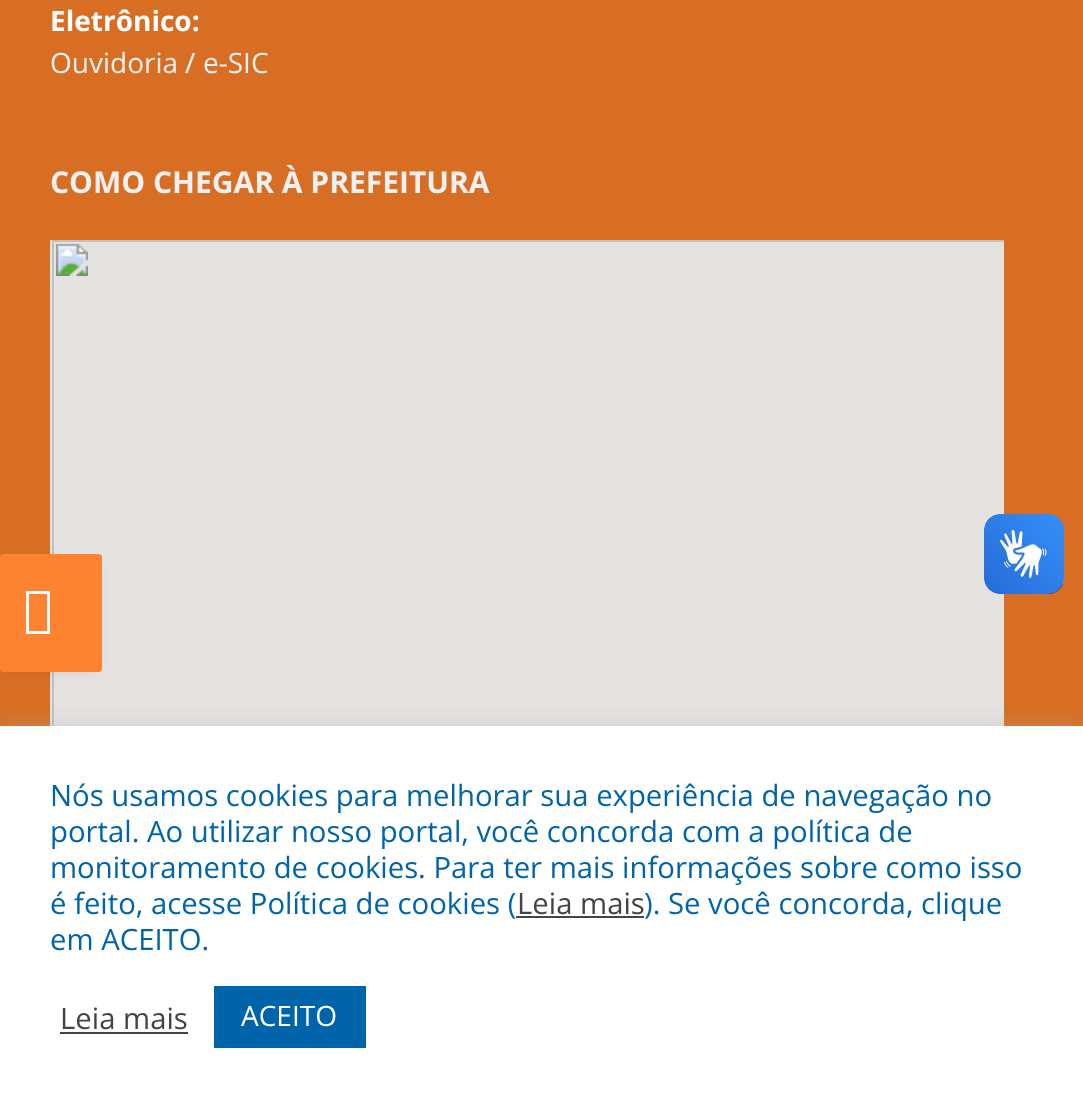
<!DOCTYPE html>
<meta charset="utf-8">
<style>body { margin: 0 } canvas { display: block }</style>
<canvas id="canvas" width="1083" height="1108"></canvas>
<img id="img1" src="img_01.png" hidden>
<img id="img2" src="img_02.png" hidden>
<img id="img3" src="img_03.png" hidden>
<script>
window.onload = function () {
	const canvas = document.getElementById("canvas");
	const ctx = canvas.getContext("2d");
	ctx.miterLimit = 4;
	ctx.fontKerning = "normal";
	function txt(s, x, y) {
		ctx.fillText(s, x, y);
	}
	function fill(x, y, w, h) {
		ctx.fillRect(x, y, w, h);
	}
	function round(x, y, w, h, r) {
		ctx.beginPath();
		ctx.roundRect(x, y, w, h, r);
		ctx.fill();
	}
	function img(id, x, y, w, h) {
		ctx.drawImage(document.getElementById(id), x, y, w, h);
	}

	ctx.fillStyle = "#D76E23";
	fill(0, 0, 1083, 1108);
	img("img1", 50, 240, 954, 486);
	ctx.fillStyle = "rgba(0, 0, 0, 0.16)";
	ctx.filter = "blur(7px)";
	ctx.beginPath();
	ctx.rect(8, 566, 86, 102);
	ctx.fill();
	ctx.filter = "none";
	ctx.fillStyle = "#FE8330";
	round(0, 554, 102, 118, 4);
	fill(101, 556, 1, 114);
	fill(2, 671, 98, 1);
	ctx.fillStyle = "#FFFFFF";
	ctx.beginPath();
	ctx.moveTo(26, 634);
	ctx.lineTo(26, 591);
	ctx.lineTo(50, 591);
	ctx.lineTo(50, 634);
	ctx.closePath();
	ctx.moveTo(29, 631);
	ctx.lineTo(47, 631);
	ctx.lineTo(47, 594);
	ctx.lineTo(29, 594);
	ctx.closePath();
	ctx.fill();
	ctx.fillStyle = "rgba(172, 171, 171, 0.3)";
	ctx.filter = "blur(10px)";
	ctx.beginPath();
	ctx.rect(0, 724, 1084, 382);
	ctx.fill();
	ctx.filter = "none";
	ctx.fillStyle = "#FFFFFF";
	fill(0, 726, 1083, 382);
	ctx.fillStyle = "#444444";
	fill(516, 916, 128, 2);
	fill(60, 1032, 128, 2);
	ctx.fillStyle = "#0064AB";
	fill(214, 986, 152, 62);
	img("img2", 984, 514, 80, 80);
	img("img3", 984, 514, 80, 80);
	ctx.font = "bold 28px Open Sans";
	ctx.fillStyle = "#FFFFFF";
	txt("Eletrônico:", 50, 31);
	ctx.font = "28px Open Sans";
	ctx.fillStyle = "#F0F0F0";
	txt("Ouvidoria", 50, 73);
	ctx.fillStyle = "#FFFFFF";
	txt("/", 185, 73);
	ctx.fillStyle = "#F0F0F0";
	txt("e-SIC", 203, 73);
	ctx.font = "bold 30px Open Sans";
	txt("COMO CHEGAR À PREFEITURA", 50, 193);
	ctx.font = "29.3px Open Sans";
	ctx.fillStyle = "#0064AB";
	txt("Nós usamos cookies para melhorar sua experiência de navegação no", 50, 806);
	txt("portal. Ao utilizar nosso portal, você concorda com a política de", 50, 842);
	txt("monitoramento de cookies. Para ter mais informações sobre como isso", 50, 878);
	txt("é feito, acesse Política de cookies (", 50, 914);
	ctx.fillStyle = "#444444";
	txt("Leia mais", 517, 914);
	ctx.fillStyle = "#0064AB";
	txt("). Se você concorda, clique", 644, 914);
	txt("em ACEITO.", 50, 950);
	ctx.fillStyle = "#444444";
	txt("Leia mais", 60, 1029);
	ctx.font = "28px Open Sans";
	ctx.fillStyle = "#FFFFFF";
	txt("ACEITO", 241, 1026);
};
</script>
